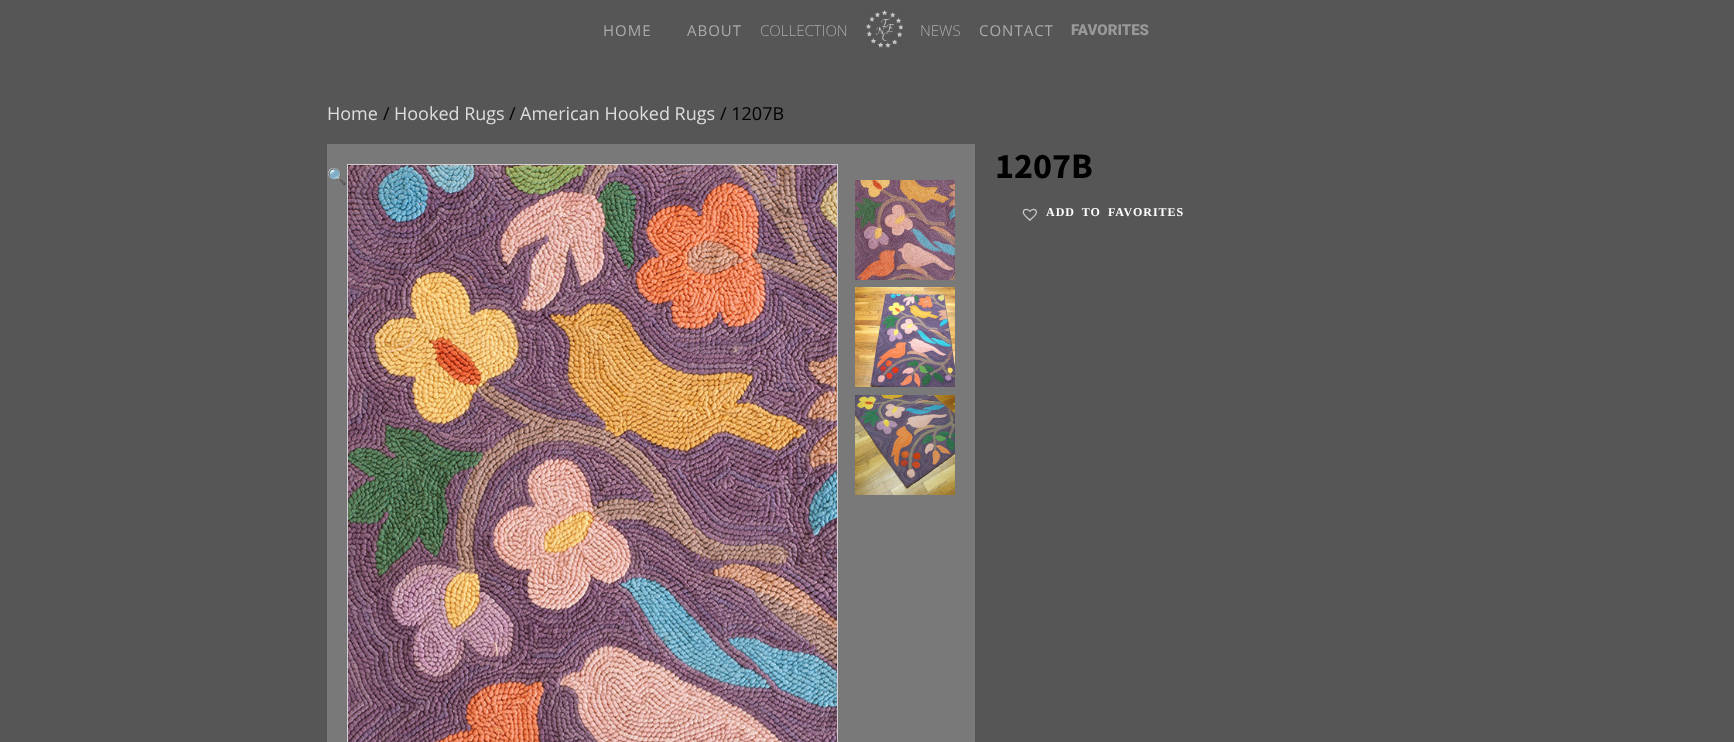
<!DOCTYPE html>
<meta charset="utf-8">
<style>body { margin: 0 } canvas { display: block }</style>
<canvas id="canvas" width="1734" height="742"></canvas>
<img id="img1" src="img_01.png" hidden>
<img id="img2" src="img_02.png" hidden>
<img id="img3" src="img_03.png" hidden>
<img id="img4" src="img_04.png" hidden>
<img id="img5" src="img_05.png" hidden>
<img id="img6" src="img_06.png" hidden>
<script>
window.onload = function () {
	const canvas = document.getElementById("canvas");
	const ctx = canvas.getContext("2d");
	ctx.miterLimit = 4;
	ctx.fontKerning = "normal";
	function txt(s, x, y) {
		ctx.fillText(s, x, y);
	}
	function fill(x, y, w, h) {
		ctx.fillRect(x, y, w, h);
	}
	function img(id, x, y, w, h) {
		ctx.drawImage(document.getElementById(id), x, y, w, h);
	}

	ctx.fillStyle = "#565656";
	fill(0, 0, 1734, 742);
	img("img1", 866, 10, 37, 38);
	ctx.fillStyle = "#7A7979";
	fill(327, 144, 648, 598);
	ctx.strokeStyle = "#D3CED2";
	ctx.strokeRect(347.5, 164.5, 490, 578);
	img("img2", 348, 165, 489, 577);
	img("img3", 855, 180, 100, 100);
	img("img4", 855, 287, 100, 100);
	img("img5", 855, 395, 100, 100);
	img("img6", 1022, 208, 15, 13);
	ctx.letterSpacing = "1px";
	ctx.font = "15px Open Sans";
	ctx.fillStyle = "#ABABAB";
	txt("HOME", 603, 36);
	txt("ABOUT", 687, 36);
	ctx.letterSpacing = "0px";
	ctx.font = "300 15px Open Sans";
	txt("COLLECTION", 760, 36);
	txt("NEWS", 920, 36);
	ctx.letterSpacing = "1px";
	ctx.font = "15px Open Sans";
	txt("CONTACT", 979, 36);
	ctx.letterSpacing = "0px";
	ctx.font = "900 15px Roboto";
	ctx.fillStyle = "#999999";
	txt("FAVORITES", 1071, 35);
	ctx.font = "18px Open Sans";
	ctx.fillStyle = "#DDDDDD";
	txt("Home", 327, 120);
	ctx.fillStyle = "#000000";
	txt("/", 383, 120);
	ctx.fillStyle = "#DDDDDD";
	txt("Hooked Rugs", 394, 120);
	ctx.fillStyle = "#000000";
	txt("/", 509, 120);
	ctx.fillStyle = "#DDDDDD";
	txt("American Hooked Rugs", 520, 120);
	ctx.fillStyle = "#000000";
	txt("/ 1207B", 720, 120);
	ctx.font = "16px Noto Color Emoji";
	ctx.fillStyle = "#0074DB";
	txt("🔍", 327, 182);
	ctx.font = "bold 36px Source Sans Pro";
	ctx.fillStyle = "#000000";
	txt("1207B", 995, 178);
	ctx.letterSpacing = "1px";
	ctx.wordSpacing = "3px";
	ctx.font = "bold 12px Liberation Serif";
	ctx.fillStyle = "#FFFFFF";
	txt("ADD TO FAVORITES", 1046, 216);
};
</script>
